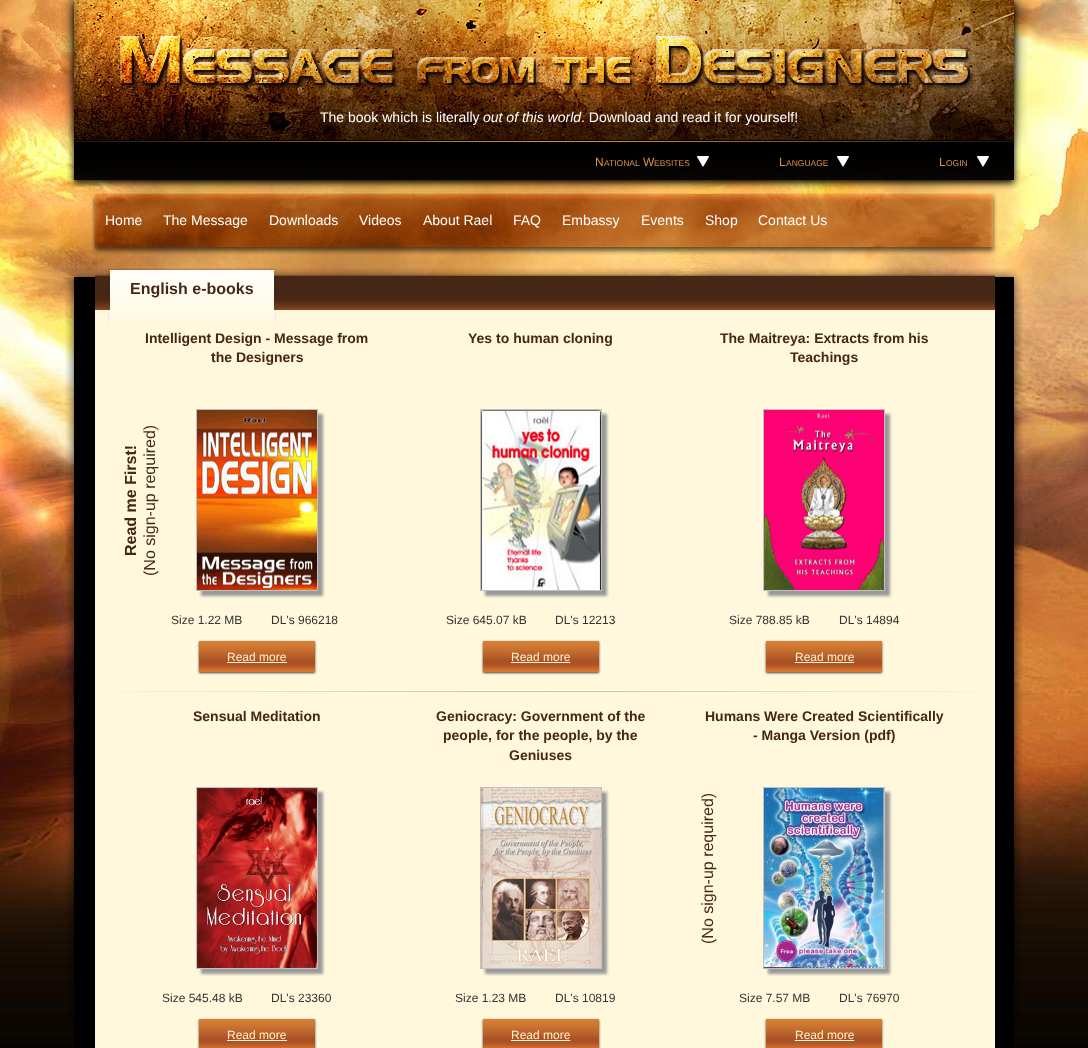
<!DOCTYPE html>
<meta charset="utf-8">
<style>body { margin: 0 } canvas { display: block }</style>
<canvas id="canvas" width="1088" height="1048"></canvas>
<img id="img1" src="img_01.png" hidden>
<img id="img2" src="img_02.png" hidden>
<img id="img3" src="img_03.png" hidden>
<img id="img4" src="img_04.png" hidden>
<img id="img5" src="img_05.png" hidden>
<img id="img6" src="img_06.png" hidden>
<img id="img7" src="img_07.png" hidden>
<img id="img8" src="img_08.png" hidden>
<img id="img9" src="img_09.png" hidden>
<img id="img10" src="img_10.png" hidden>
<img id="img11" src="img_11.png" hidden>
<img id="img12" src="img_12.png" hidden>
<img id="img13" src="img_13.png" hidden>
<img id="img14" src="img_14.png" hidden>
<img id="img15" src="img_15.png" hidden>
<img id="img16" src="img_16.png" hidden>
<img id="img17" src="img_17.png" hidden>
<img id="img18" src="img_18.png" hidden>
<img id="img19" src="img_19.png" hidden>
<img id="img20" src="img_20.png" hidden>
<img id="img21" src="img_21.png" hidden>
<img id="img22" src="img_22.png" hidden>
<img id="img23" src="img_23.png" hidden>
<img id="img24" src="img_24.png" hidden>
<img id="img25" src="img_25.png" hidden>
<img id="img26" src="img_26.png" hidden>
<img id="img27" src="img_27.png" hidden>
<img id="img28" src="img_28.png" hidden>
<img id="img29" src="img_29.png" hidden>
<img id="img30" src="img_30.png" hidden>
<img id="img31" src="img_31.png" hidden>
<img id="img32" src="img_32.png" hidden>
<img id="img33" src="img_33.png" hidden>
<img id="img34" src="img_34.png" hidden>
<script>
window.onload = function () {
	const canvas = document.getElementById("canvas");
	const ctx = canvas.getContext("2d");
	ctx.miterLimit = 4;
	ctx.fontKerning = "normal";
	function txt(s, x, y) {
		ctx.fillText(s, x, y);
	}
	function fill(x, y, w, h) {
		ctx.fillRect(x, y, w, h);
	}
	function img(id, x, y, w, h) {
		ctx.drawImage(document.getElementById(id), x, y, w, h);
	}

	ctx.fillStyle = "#FFFFFF";
	fill(0, 0, 1088, 1048);
	img("img1", 0, 0, 1088, 1048);
	img("img2", 61, 0, 13, 149);
	img("img3", 1014, 0, 13, 149);
	ctx.fillStyle = "#000000";
	ctx.filter = "blur(3.5px)";
	ctx.beginPath();
	ctx.rect(74, 3, 940, 180);
	ctx.fill();
	ctx.filter = "none";
	img("img4", 74, 0, 940, 180);
	img("img5", 697, 156, 12, 11);
	img("img6", 837, 156, 12, 11);
	img("img7", 977, 156, 12, 11);
	img("img8", 91, 193, 906, 62);
	img("img9", 65, 268, 19, 19);
	img("img10", 1004, 268, 19, 19);
	img("img11", 84, 268, 920, 19);
	img("img12", 65, 287, 9, 737);
	img("img13", 1014, 287, 9, 737);
	fill(74, 287, 940, 761);
	img("img14", 95, 274, 900, 55);
	img("img15", 108, 269, 1, 56);
	img("img16", 275, 269, 1, 56);
	img("img17", 110, 268, 164, 54);
	ctx.fillStyle = "#FFF8DC";
	fill(95, 329, 900, 719);
	ctx.fillStyle = "#999999";
	ctx.filter = "blur(1.5px)";
	ctx.beginPath();
	ctx.rect(201, 414, 122, 182);
	ctx.fill();
	ctx.filter = "none";
	ctx.strokeStyle = "#C0C0C0";
	ctx.strokeRect(196.5, 409.5, 121, 181);
	img("img18", 197, 410, 120, 180);
	img("img19", 201, 640, 112, 35);
	img("img20", 197, 640, 4, 35);
	img("img21", 313, 640, 4, 35);
	ctx.fillStyle = "#FFF1D1";
	fill(227, 662, 60, 1);
	ctx.fillStyle = "#999999";
	ctx.filter = "blur(1.5px)";
	ctx.beginPath();
	ctx.rect(485, 414, 122, 182);
	ctx.fill();
	ctx.filter = "none";
	ctx.strokeRect(480.5, 409.5, 121, 181);
	img("img22", 481, 410, 120, 180);
	img("img19", 485, 640, 112, 35);
	img("img20", 481, 640, 4, 35);
	img("img23", 511, 640, 90, 35);
	ctx.filter = "blur(1.5px)";
	ctx.beginPath();
	ctx.rect(768, 414, 122, 182);
	ctx.fill();
	ctx.filter = "none";
	ctx.strokeRect(763.5, 409.5, 121, 181);
	img("img24", 764, 410, 120, 180);
	img("img19", 768, 640, 112, 35);
	img("img20", 764, 640, 4, 35);
	img("img25", 794, 640, 90, 35);
	img("img26", 115, 690, 860, 2);
	ctx.filter = "blur(1.5px)";
	ctx.beginPath();
	ctx.rect(201, 792, 122, 182);
	ctx.fill();
	ctx.filter = "none";
	ctx.strokeRect(196.5, 787.5, 121, 181);
	img("img27", 197, 788, 120, 180);
	img("img28", 200, 1018, 113, 30);
	img("img29", 197, 1018, 3, 30);
	img("img30", 313, 1018, 4, 30);
	ctx.fillStyle = "#FFF1D1";
	fill(227, 1040, 60, 1);
	ctx.fillStyle = "#999999";
	ctx.filter = "blur(1.5px)";
	ctx.beginPath();
	ctx.rect(485, 792, 122, 182);
	ctx.fill();
	ctx.filter = "none";
	ctx.strokeRect(480.5, 787.5, 121, 181);
	img("img31", 481, 788, 120, 180);
	img("img28", 484, 1018, 113, 30);
	img("img29", 481, 1018, 3, 30);
	img("img32", 511, 1018, 90, 30);
	ctx.filter = "blur(1.5px)";
	ctx.beginPath();
	ctx.rect(768, 792, 122, 182);
	ctx.fill();
	ctx.filter = "none";
	ctx.strokeRect(763.5, 787.5, 121, 181);
	img("img33", 764, 788, 120, 180);
	img("img28", 767, 1018, 113, 30);
	img("img29", 764, 1018, 3, 30);
	img("img34", 794, 1018, 90, 30);
	ctx.font = "14px Liberation Sans";
	ctx.fillStyle = "#FFFFFE";
	txt("The book which is literally", 320, 122);
	ctx.font = "italic 14px Liberation Sans";
	txt("out of this world", 483, 122);
	ctx.font = "14px Liberation Sans";
	txt(". Download and read it for yourself!", 581, 122);
	ctx.font = "12px Liberation Sans";
	ctx.fillStyle = "#DF904E";
	txt("N", 595, 166);
	ctx.font = "8.5px Liberation Sans";
	txt("ATIONAL", 604, 166);
	ctx.font = "12px Liberation Sans";
	txt("W", 643, 166);
	ctx.font = "8.5px Liberation Sans";
	txt("EBSITES", 654, 166);
	ctx.font = "12px Liberation Sans";
	txt("L", 779, 166);
	ctx.font = "8.5px Liberation Sans";
	txt("ANGUAGE", 786, 166);
	ctx.font = "12px Liberation Sans";
	txt("L", 939, 166);
	ctx.font = "8.5px Liberation Sans";
	txt("OGIN", 946, 166);
	ctx.font = "14px Liberation Sans";
	ctx.fillStyle = "#FFFFFE";
	txt("Home", 105, 225);
	txt("The Message", 163, 225);
	txt("Downloads", 269, 225);
	txt("Videos", 359, 225);
	txt("About Rael", 423, 225);
	txt("FAQ", 513, 225);
	txt("Embassy", 562, 225);
	txt("Events", 641, 225);
	txt("Shop", 705, 225);
	txt("Contact Us", 758, 225);
	ctx.font = "bold 16px Liberation Sans";
	ctx.fillStyle = "#462715";
	txt("English e-books", 130, 294);
	ctx.font = "bold 14px Liberation Sans";
	txt("Intelligent Design - Message from", 145, 343);
	txt("the Designers", 211, 362);
	ctx.font = "bold 16px Liberation Sans";
	ctx.save();
	ctx.translate(136, 556);
	ctx.rotate(-90 * Math.PI / 180);
	ctx.fillText("Read me First!", 0, 0);
	ctx.restore();
	ctx.font = "16px Liberation Sans";
	ctx.save();
	ctx.translate(155, 576);
	ctx.rotate(-90 * Math.PI / 180);
	ctx.fillText("(No sign-up required)", 0, 0);
	ctx.restore();
	ctx.font = "12px Liberation Sans";
	ctx.fillStyle = "#333333";
	txt("Size 1.22 MB", 171, 624);
	txt("DL's 966218", 271, 624);
	ctx.fillStyle = "#FFF1D1";
	txt("Read more", 227, 661);
	ctx.font = "bold 14px Liberation Sans";
	ctx.fillStyle = "#462715";
	txt("Yes to human cloning", 468, 343);
	ctx.font = "12px Liberation Sans";
	ctx.fillStyle = "#333333";
	txt("Size 645.07 kB", 446, 624);
	txt("DL's 12213", 555, 624);
	ctx.fillStyle = "#FFF1D1";
	txt("Read more", 511, 661);
	ctx.font = "bold 14px Liberation Sans";
	ctx.fillStyle = "#462715";
	txt("The Maitreya: Extracts from his", 720, 343);
	txt("Teachings", 790, 362);
	ctx.font = "12px Liberation Sans";
	ctx.fillStyle = "#333333";
	txt("Size 788.85 kB", 729, 624);
	txt("DL's 14894", 839, 624);
	ctx.fillStyle = "#FFF1D1";
	txt("Read more", 795, 661);
	ctx.font = "bold 14px Liberation Sans";
	ctx.fillStyle = "#462715";
	txt("Sensual Meditation", 193, 721);
	ctx.font = "12px Liberation Sans";
	ctx.fillStyle = "#333333";
	txt("Size 545.48 kB", 162, 1002);
	txt("DL's 23360", 271, 1002);
	ctx.fillStyle = "#FFF1D1";
	txt("Read more", 227, 1039);
	ctx.font = "bold 14px Liberation Sans";
	ctx.fillStyle = "#462715";
	txt("Geniocracy: Government of the", 436, 721);
	txt("people, for the people, by the", 443, 740);
	txt("Geniuses", 509, 760);
	ctx.font = "12px Liberation Sans";
	ctx.fillStyle = "#333333";
	txt("Size 1.23 MB", 455, 1002);
	txt("DL's 10819", 555, 1002);
	ctx.fillStyle = "#FFF1D1";
	txt("Read more", 511, 1039);
	ctx.font = "bold 14px Liberation Sans";
	ctx.fillStyle = "#462715";
	txt("Humans Were Created Scientifically", 705, 721);
	txt("- Manga Version (pdf)", 753, 740);
	ctx.font = "16px Liberation Sans";
	ctx.save();
	ctx.translate(713, 944);
	ctx.rotate(-90 * Math.PI / 180);
	ctx.fillText("(No sign-up required)", 0, 0);
	ctx.restore();
	ctx.font = "12px Liberation Sans";
	ctx.fillStyle = "#333333";
	txt("Size 7.57 MB", 739, 1002);
	txt("DL's 76970", 839, 1002);
	ctx.fillStyle = "#FFF1D1";
	txt("Read more", 795, 1039);
};
</script>
